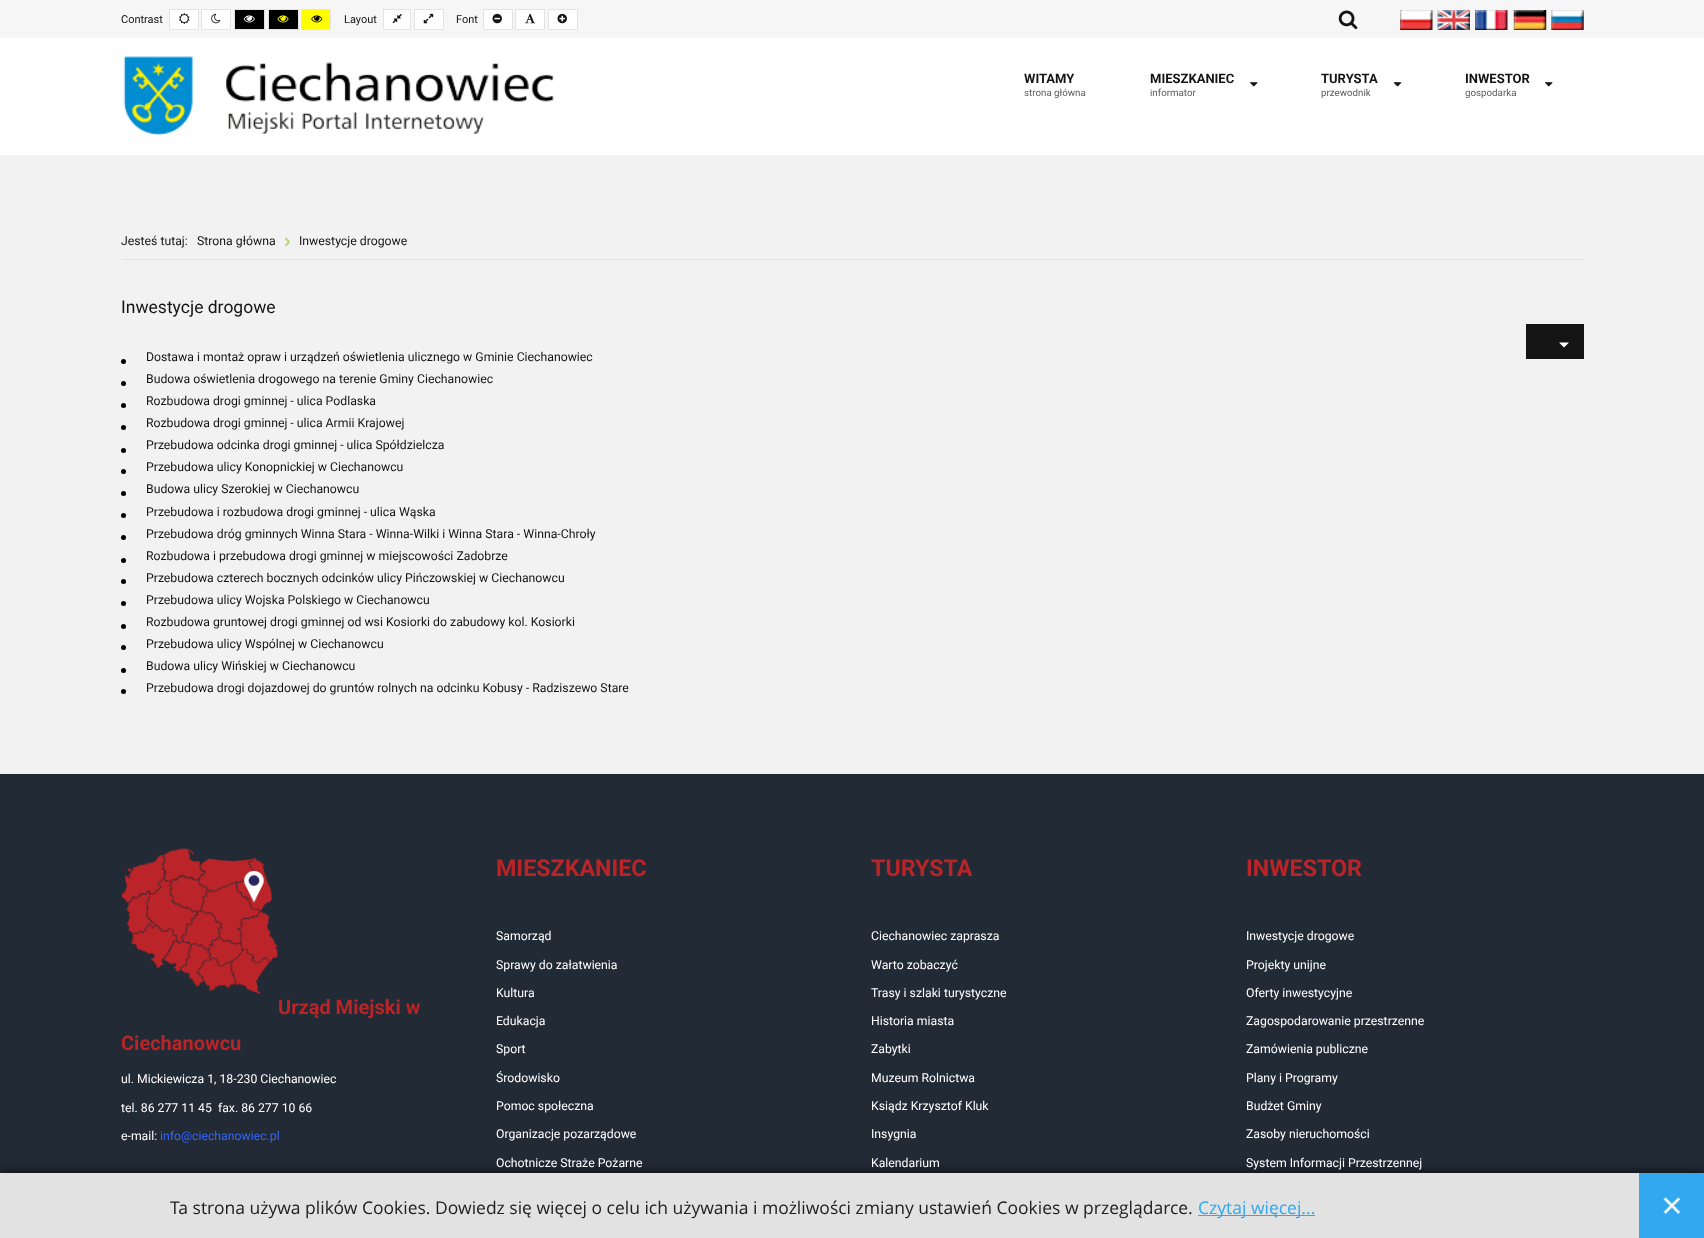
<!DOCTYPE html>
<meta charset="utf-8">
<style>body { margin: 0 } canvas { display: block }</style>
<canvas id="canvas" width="1704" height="1238"></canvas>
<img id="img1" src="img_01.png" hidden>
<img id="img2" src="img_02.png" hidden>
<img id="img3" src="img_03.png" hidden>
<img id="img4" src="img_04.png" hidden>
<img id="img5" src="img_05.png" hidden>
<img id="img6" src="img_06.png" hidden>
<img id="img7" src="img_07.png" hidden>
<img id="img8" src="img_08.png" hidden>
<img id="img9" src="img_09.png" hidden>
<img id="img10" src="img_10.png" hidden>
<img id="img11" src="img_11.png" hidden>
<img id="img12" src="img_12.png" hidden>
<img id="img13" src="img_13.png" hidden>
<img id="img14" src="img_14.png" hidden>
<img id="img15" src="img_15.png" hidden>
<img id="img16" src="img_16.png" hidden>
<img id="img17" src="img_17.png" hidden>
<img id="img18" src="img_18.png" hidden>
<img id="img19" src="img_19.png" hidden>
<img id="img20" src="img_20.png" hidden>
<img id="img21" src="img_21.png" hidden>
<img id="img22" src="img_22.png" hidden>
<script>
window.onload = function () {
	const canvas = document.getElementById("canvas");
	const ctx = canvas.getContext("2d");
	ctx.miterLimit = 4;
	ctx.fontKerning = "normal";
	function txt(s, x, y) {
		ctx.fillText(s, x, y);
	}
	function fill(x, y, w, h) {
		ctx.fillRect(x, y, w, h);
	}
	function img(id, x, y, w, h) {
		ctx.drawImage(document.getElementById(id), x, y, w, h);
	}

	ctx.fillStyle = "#F2F2F2";
	fill(0, 0, 1704, 1238);
	ctx.fillStyle = "#F6F6F6";
	fill(0, 0, 1704, 38);
	ctx.fillStyle = "#FFFFFF";
	ctx.beginPath();
	ctx.rect(169.5, 9.5, 29, 20);
	ctx.fill();
	ctx.strokeStyle = "#E3E3E3";
	ctx.stroke();
	img("img1", 179, 13, 11, 11);
	ctx.beginPath();
	ctx.rect(201.5, 9.5, 29, 20);
	ctx.fill();
	ctx.stroke();
	img("img2", 211, 13, 10, 11);
	ctx.fillStyle = "#000000";
	ctx.beginPath();
	ctx.rect(234.5, 9.5, 30, 20);
	ctx.fill();
	ctx.stroke();
	img("img3", 243, 15, 12, 8);
	ctx.beginPath();
	ctx.rect(268.5, 9.5, 30, 20);
	ctx.fill();
	ctx.stroke();
	img("img4", 277, 15, 12, 8);
	ctx.fillStyle = "#FFFF00";
	ctx.beginPath();
	ctx.rect(301.5, 9.5, 29, 20);
	ctx.fill();
	ctx.stroke();
	img("img5", 311, 15, 12, 8);
	ctx.fillStyle = "#FFFFFF";
	ctx.beginPath();
	ctx.rect(383.5, 9.5, 27, 20);
	ctx.fill();
	ctx.stroke();
	img("img6", 392, 14, 10, 10);
	ctx.beginPath();
	ctx.rect(414.5, 9.5, 29, 20);
	ctx.fill();
	ctx.stroke();
	img("img7", 423, 13, 11, 11);
	ctx.beginPath();
	ctx.rect(483.5, 9.5, 29, 20);
	ctx.fill();
	ctx.stroke();
	img("img8", 492, 13, 10, 11);
	ctx.beginPath();
	ctx.rect(515.5, 9.5, 29, 20);
	ctx.fill();
	ctx.stroke();
	img("img9", 525, 13, 11, 11);
	ctx.beginPath();
	ctx.rect(548.5, 9.5, 29, 20);
	ctx.fill();
	ctx.stroke();
	img("img10", 557, 13, 10, 11);
	img("img11", 1338, 10, 20, 20);
	img("img12", 1400, 10, 33, 20);
	img("img13", 1437, 10, 33, 20);
	img("img14", 1475, 10, 33, 20);
	img("img15", 1513, 10, 34, 20);
	img("img16", 1551, 10, 33, 20);
	fill(0, 38, 1704, 117);
	img("img17", 123, 56, 431, 80);
	img("img18", 1250, 82, 8, 5);
	img("img19", 1393, 82, 9, 5);
	img("img18", 1545, 82, 8, 5);
	ctx.fillStyle = "#E3E3E3";
	fill(121, 259, 1463, 1);
	img("img20", 285, 237, 5, 10);
	ctx.fillStyle = "#151414";
	fill(1526, 324, 58, 35);
	ctx.fillStyle = "#FFFFFF";
	ctx.beginPath();
	ctx.moveTo(1559, 342.5);
	ctx.lineTo(1569, 342.5);
	ctx.lineTo(1564, 347.5);
	ctx.closePath();
	ctx.fill();
	ctx.fillStyle = "#000000";
	ctx.beginPath();
	ctx.arc(123.5, 361.5, 2.5, 0, Math.PI * 2);
	ctx.fill();
	ctx.beginPath();
	ctx.arc(123.5, 383.5, 2.5, 0, Math.PI * 2);
	ctx.fill();
	ctx.beginPath();
	ctx.arc(123.5, 405.5, 2.5, 0, Math.PI * 2);
	ctx.fill();
	ctx.beginPath();
	ctx.arc(123.5, 427.5, 2.5, 0, Math.PI * 2);
	ctx.fill();
	ctx.beginPath();
	ctx.arc(123.5, 450.5, 2.5, 0, Math.PI * 2);
	ctx.fill();
	ctx.beginPath();
	ctx.arc(123.5, 471.5, 2.5, 0, Math.PI * 2);
	ctx.fill();
	ctx.beginPath();
	ctx.arc(123.5, 493.5, 2.5, 0, Math.PI * 2);
	ctx.fill();
	ctx.beginPath();
	ctx.arc(123.5, 515.5, 2.5, 0, Math.PI * 2);
	ctx.fill();
	ctx.beginPath();
	ctx.arc(123.5, 537.5, 2.5, 0, Math.PI * 2);
	ctx.fill();
	ctx.beginPath();
	ctx.arc(123.5, 560.5, 2.5, 0, Math.PI * 2);
	ctx.fill();
	ctx.beginPath();
	ctx.arc(123.5, 581.5, 2.5, 0, Math.PI * 2);
	ctx.fill();
	ctx.beginPath();
	ctx.arc(123.5, 603.5, 2.5, 0, Math.PI * 2);
	ctx.fill();
	ctx.beginPath();
	ctx.arc(123.5, 626.5, 2.5, 0, Math.PI * 2);
	ctx.fill();
	ctx.beginPath();
	ctx.arc(123.5, 647.5, 2.5, 0, Math.PI * 2);
	ctx.fill();
	ctx.beginPath();
	ctx.arc(123.5, 670.5, 2.5, 0, Math.PI * 2);
	ctx.fill();
	ctx.beginPath();
	ctx.arc(123.5, 691.5, 2.5, 0, Math.PI * 2);
	ctx.fill();
	ctx.fillStyle = "#222A36";
	fill(0, 774, 1704, 399);
	img("img21", 121, 848, 157, 146);
	ctx.fillStyle = "rgba(0, 0, 0, 0.8)";
	ctx.filter = "blur(6px)";
	ctx.beginPath();
	ctx.rect(0, 1173, 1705, 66);
	ctx.fill();
	ctx.filter = "none";
	ctx.fillStyle = "#E2E2E2";
	fill(0, 1173, 1639, 65);
	ctx.fillStyle = "#31A8F0";
	fill(1198, 1215, 117, 1);
	fill(1639, 1173, 65, 65);
	img("img22", 1663, 1197, 18, 17);
	ctx.font = "11px Roboto";
	ctx.fillStyle = "#151414";
	txt("Contrast", 121, 23);
	txt("Layout", 344, 23);
	txt("Font", 456, 23);
	ctx.font = "bold 13px Roboto";
	txt("WITAMY", 1024, 83);
	ctx.font = "9.75px Roboto";
	ctx.fillStyle = "#5B5B5B";
	txt("strona główna", 1024, 96);
	ctx.font = "bold 13px Roboto";
	ctx.fillStyle = "#151414";
	txt("MIESZKANIEC", 1150, 83);
	ctx.font = "9.75px Roboto";
	ctx.fillStyle = "#5B5B5B";
	txt("informator", 1150, 96);
	ctx.font = "bold 13px Roboto";
	ctx.fillStyle = "#151414";
	txt("TURYSTA", 1321, 83);
	ctx.font = "9.75px Roboto";
	ctx.fillStyle = "#5B5B5B";
	txt("przewodnik", 1321, 96);
	ctx.font = "bold 13px Roboto";
	ctx.fillStyle = "#151414";
	txt("INWESTOR", 1465, 83);
	ctx.font = "9.75px Roboto";
	ctx.fillStyle = "#5B5B5B";
	txt("gospodarka", 1465, 96);
	ctx.font = "12.25px Roboto";
	ctx.fillStyle = "#151414";
	txt("Jesteś tutaj:", 121, 245);
	txt("Strona główna", 197, 245);
	txt("Inwestycje drogowe", 299, 245);
	ctx.font = "17.5px Roboto";
	txt("Inwestycje drogowe", 121, 313);
	ctx.font = "12.25px Roboto";
	txt("Dostawa i montaż opraw i urządzeń oświetlenia ulicznego w Gminie Ciechanowiec", 146, 361);
	txt("Budowa oświetlenia drogowego na terenie Gminy Ciechanowiec", 146, 383);
	txt("Rozbudowa drogi gminnej - ulica Podlaska", 146, 405);
	txt("Rozbudowa drogi gminnej - ulica Armii Krajowej", 146, 427);
	txt("Przebudowa odcinka drogi gminnej - ulica Spółdzielcza", 146, 449);
	txt("Przebudowa ulicy Konopnickiej w Ciechanowcu", 146, 471);
	txt("Budowa ulicy Szerokiej w Ciechanowcu", 146, 493);
	txt("Przebudowa i rozbudowa drogi gminnej - ulica Wąska", 146, 516);
	txt("Przebudowa dróg gminnych Winna Stara - Winna-Wilki i Winna Stara - Winna-Chroły", 146, 538);
	txt("Rozbudowa i przebudowa drogi gminnej w miejscowości Zadobrze", 146, 560);
	txt("Przebudowa czterech bocznych odcinków ulicy Pińczowskiej w Ciechanowcu", 146, 582);
	txt("Przebudowa ulicy Wojska Polskiego w Ciechanowcu", 146, 604);
	txt("Rozbudowa gruntowej drogi gminnej od wsi Kosiorki do zabudowy kol. Kosiorki", 146, 626);
	txt("Przebudowa ulicy Wspólnej w Ciechanowcu", 146, 648);
	txt("Budowa ulicy Wińskiej w Ciechanowcu", 146, 670);
	txt("Przebudowa drogi dojazdowej do gruntów rolnych na odcinku Kobusy - Radziszewo Stare", 146, 692);
	ctx.font = "bold 20px Roboto";
	ctx.fillStyle = "#BB2427";
	txt("Urząd Miejski w", 278, 1014);
	txt("Ciechanowcu", 121, 1050);
	ctx.font = "12.25px Roboto";
	ctx.fillStyle = "#FFFFFF";
	txt("ul. Mickiewicza 1, 18-230 Ciechanowiec", 121, 1083);
	txt("tel. 86 277 11 45  fax. 86 277 10 66", 121, 1112);
	txt("e-mail:", 121, 1140);
	ctx.fillStyle = "#3366FF";
	txt("info@ciechanowiec.pl", 160, 1140);
	ctx.font = "bold 23.25px Roboto";
	ctx.fillStyle = "#BB2427";
	txt("MIESZKANIEC", 496, 876);
	ctx.font = "12.25px Roboto";
	ctx.fillStyle = "#FFFFFF";
	txt("Samorząd", 496, 940);
	txt("Sprawy do załatwienia", 496, 969);
	txt("Kultura", 496, 997);
	txt("Edukacja", 496, 1025);
	txt("Sport", 496, 1053);
	txt("Środowisko", 496, 1082);
	txt("Pomoc społeczna", 496, 1110);
	txt("Organizacje pozarządowe", 496, 1138);
	txt("Ochotnicze Straże Pożarne", 496, 1167);
	ctx.font = "bold 23.25px Roboto";
	ctx.fillStyle = "#BB2427";
	txt("TURYSTA", 871, 876);
	ctx.font = "12.25px Roboto";
	ctx.fillStyle = "#FFFFFF";
	txt("Ciechanowiec zaprasza", 871, 940);
	txt("Warto zobaczyć", 871, 969);
	txt("Trasy i szlaki turystyczne", 871, 997);
	txt("Historia miasta", 871, 1025);
	txt("Zabytki", 871, 1053);
	txt("Muzeum Rolnictwa", 871, 1082);
	txt("Ksiądz Krzysztof Kluk", 871, 1110);
	txt("Insygnia", 871, 1138);
	txt("Kalendarium", 871, 1167);
	ctx.font = "bold 23.25px Roboto";
	ctx.fillStyle = "#BB2427";
	txt("INWESTOR", 1246, 876);
	ctx.font = "12.25px Roboto";
	ctx.fillStyle = "#FFFFFF";
	txt("Inwestycje drogowe", 1246, 940);
	txt("Projekty unijne", 1246, 969);
	txt("Oferty inwestycyjne", 1246, 997);
	txt("Zagospodarowanie przestrzenne", 1246, 1025);
	txt("Zamówienia publiczne", 1246, 1053);
	txt("Plany i Programy", 1246, 1082);
	txt("Budżet Gminy", 1246, 1110);
	txt("Zasoby nieruchomości", 1246, 1138);
	txt("System Informacji Przestrzennej", 1246, 1167);
	ctx.font = "17.5px Open Sans";
	ctx.fillStyle = "#212121";
	txt("Ta strona używa plików Cookies. Dowiedz się więcej o celu ich używania i możliwości zmiany ustawień Cookies w przeglądarce.", 170, 1214);
	ctx.fillStyle = "#31A8F0";
	txt("Czytaj więcej...", 1198, 1214);
};
</script>
